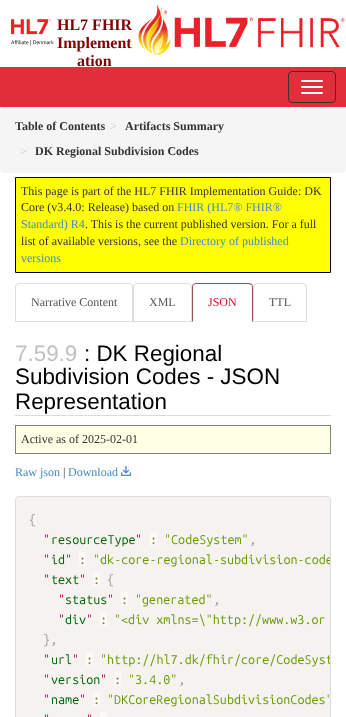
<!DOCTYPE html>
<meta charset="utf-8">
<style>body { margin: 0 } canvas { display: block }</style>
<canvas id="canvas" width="346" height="717"></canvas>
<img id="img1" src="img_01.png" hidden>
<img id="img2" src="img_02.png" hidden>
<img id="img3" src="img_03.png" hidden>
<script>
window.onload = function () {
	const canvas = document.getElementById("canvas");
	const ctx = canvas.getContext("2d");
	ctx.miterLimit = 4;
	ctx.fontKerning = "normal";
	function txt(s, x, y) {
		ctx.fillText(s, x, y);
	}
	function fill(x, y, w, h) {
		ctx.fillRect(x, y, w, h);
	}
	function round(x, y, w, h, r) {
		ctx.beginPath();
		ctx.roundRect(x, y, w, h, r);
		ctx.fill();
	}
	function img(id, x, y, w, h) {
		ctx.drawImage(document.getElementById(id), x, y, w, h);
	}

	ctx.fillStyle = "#FFFFFF";
	fill(0, 0, 346, 717);
	img("img1", 11, 19, 43, 27);
	img("img2", 138, 5, 207, 50);
	ctx.fillStyle = "#E02E3B";
	fill(0, 67, 346, 40);
	ctx.beginPath();
	ctx.roundRect(288.5, 71.5, 47, 31, 3.5);
	ctx.strokeStyle = "#333333";
	ctx.stroke();
	ctx.fillStyle = "#FFFFFF";
	round(301, 80, 22, 2, 1);
	round(301, 86, 22, 2, 1);
	round(301, 92, 22, 2, 1);
	ctx.fillStyle = "#F5F5F5";
	round(0, 107, 346, 66, 4);
	ctx.fillStyle = "#FFFF00";
	ctx.beginPath();
	ctx.rect(15.5, 177.5, 315, 95);
	ctx.fill();
	ctx.strokeStyle = "#0A0008";
	ctx.stroke();
	ctx.beginPath();
	ctx.roundRect(15.5, 283.5, 117, 38, [3.5, 3.5, 0, 0]);
	ctx.strokeStyle = "#DDDDDD";
	ctx.stroke();
	ctx.beginPath();
	ctx.roundRect(133.5, 283.5, 58, 38, [3.5, 3.5, 0, 0]);
	ctx.stroke();
	ctx.fillStyle = "#955159";
	ctx.beginPath();
	ctx.moveTo(196, 283);
	ctx.lineTo(193, 284);
	ctx.lineTo(194, 285);
	ctx.lineTo(195, 284);
	ctx.lineTo(249, 284);
	ctx.lineTo(251, 285);
	ctx.lineTo(252, 284);
	ctx.lineTo(249, 283);
	ctx.closePath();
	ctx.fill();
	ctx.beginPath();
	ctx.moveTo(253, 322);
	ctx.lineTo(253, 287);
	ctx.bezierCurveTo(253, 286, 252.5, 285, 252, 284);
	ctx.lineTo(251, 285);
	ctx.bezierCurveTo(252, 285, 252, 286, 252, 287);
	ctx.lineTo(252, 321);
	ctx.closePath();
	ctx.moveTo(192, 322);
	ctx.lineTo(193, 321);
	ctx.lineTo(193, 287);
	ctx.bezierCurveTo(193, 286, 193, 285, 194, 285);
	ctx.lineTo(193, 284);
	ctx.bezierCurveTo(192.5, 285, 192, 286, 192, 287);
	ctx.closePath();
	ctx.fill();
	ctx.beginPath();
	ctx.roundRect(253.5, 283.5, 53, 38, [3.5, 3.5, 0, 0]);
	ctx.stroke();
	ctx.fillStyle = "#DCDCDC";
	fill(15, 415, 316, 1);
	ctx.fillStyle = "#FFFFE6";
	fill(16, 426, 314, 27);
	ctx.fillStyle = "#808080";
	fill(15, 425, 316, 1);
	fill(330, 425, 1, 29);
	fill(15, 453, 316, 1);
	fill(15, 425, 1, 29);
	img("img3", 121, 466, 10, 10);
	ctx.fillStyle = "#F5F2F0";
	ctx.beginPath();
	ctx.roundRect(15.5, 496.5, 315, 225, 3.5);
	ctx.fill();
	ctx.strokeStyle = "#DCDCDC";
	ctx.stroke();
	ctx.fillStyle = "#FAF9F8";
	fill(150, 532, 7, 14);
	fill(79, 552, 7, 14);
	fill(93, 572, 7, 14);
	fill(121, 592, 7, 14);
	fill(100, 612, 7, 14);
	fill(86, 652, 7, 14);
	fill(114, 672, 7, 14);
	fill(93, 692, 7, 14);
	fill(100, 712, 7, 5);
	ctx.font = "bold 16px Liberation Serif";
	ctx.fillStyle = "#800000";
	txt("HL7 FHIR", 57, 30);
	txt("Implement", 57, 48);
	txt("ation", 77, 66);
	ctx.font = "bold 12px Liberation Serif";
	ctx.fillStyle = "#333333";
	txt("Table of Contents", 15, 130);
	ctx.font = "12px Liberation Serif";
	ctx.fillStyle = "#CCCCCC";
	txt(">", 110, 130);
	ctx.font = "bold 12px Liberation Serif";
	ctx.fillStyle = "#333333";
	txt("Artifacts Summary", 125, 130);
	ctx.font = "12px Liberation Serif";
	ctx.fillStyle = "#CCCCCC";
	txt(">", 20, 155);
	ctx.font = "bold 12px Liberation Serif";
	ctx.fillStyle = "#333333";
	txt("DK Regional Subdivision Codes", 35, 155);
	ctx.font = "12px Liberation Serif";
	txt("This page is part of the HL7 FHIR Implementation Guide: DK", 21, 195);
	txt("Core (v3.4.0: Release) based on", 21, 211);
	ctx.fillStyle = "#428BCA";
	txt("FHIR (HL7® FHIR®", 177, 211);
	txt("Standard) R4", 21, 228);
	ctx.fillStyle = "#333333";
	txt(". This is the current published version. For a full", 85, 228);
	txt("list of available versions, see the", 21, 245);
	ctx.fillStyle = "#428BCA";
	txt("Directory of published", 180, 245);
	txt("versions", 21, 262);
	ctx.fillStyle = "#555555";
	txt("Narrative Content", 31, 306);
	txt("XML", 149, 306);
	ctx.fillStyle = "#DA0C23";
	txt("JSON", 208, 306);
	ctx.fillStyle = "#555555";
	txt("TTL", 269, 306);
	ctx.font = "22.4px Liberation Sans";
	ctx.fillStyle = "#C0C0C0";
	txt("7.59.9", 15, 361);
	ctx.fillStyle = "#000000";
	txt(": DK Regional", 84, 361);
	txt("Subdivision Codes - JSON", 15, 384);
	txt("Representation", 15, 409);
	ctx.font = "12px Liberation Serif";
	ctx.fillStyle = "#333333";
	txt("Active as of 2025-02-01", 21, 443);
	ctx.fillStyle = "#428BCA";
	txt("Raw json", 15, 476);
	ctx.fillStyle = "#333333";
	txt("|", 63, 476);
	ctx.fillStyle = "#428BCA";
	txt("Download", 68, 476);
	ctx.font = "12.6px Ubuntu Mono";
	ctx.fillStyle = "#999999";
	txt("{", 29, 524);
	ctx.fillStyle = "#990055";
	txt("\"", 43, 544);
	ctx.fillStyle = "#006400";
	txt("resourceType", 51, 544);
	ctx.fillStyle = "#990055";
	txt("\"", 135, 544);
	ctx.fillStyle = "#9A6E3A";
	txt(":", 150, 544);
	ctx.fillStyle = "#669900";
	txt("\"CodeSystem\"", 164, 544);
	ctx.fillStyle = "#999999";
	txt(",", 249, 544);
	ctx.fillStyle = "#990055";
	txt("\"", 43, 564);
	ctx.fillStyle = "#006400";
	txt("id", 51, 564);
	ctx.fillStyle = "#990055";
	txt("\"", 65, 564);
	ctx.fillStyle = "#9A6E3A";
	txt(":", 79, 564);
	ctx.save();
	ctx.beginPath();
	ctx.roundRect(16, 497, 314, 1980, 3);
	ctx.clip();
	ctx.fillStyle = "#669900";
	txt("\"dk-core-regional-subdivision-code", 93, 564);
	ctx.restore();
	ctx.fillStyle = "#990055";
	txt("\"", 43, 584);
	ctx.fillStyle = "#006400";
	txt("text", 51, 584);
	ctx.fillStyle = "#990055";
	txt("\"", 79, 584);
	ctx.fillStyle = "#9A6E3A";
	txt(":", 93, 584);
	ctx.fillStyle = "#999999";
	txt("{", 107, 584);
	ctx.fillStyle = "#990055";
	txt("\"", 58, 604);
	ctx.fillStyle = "#006400";
	txt("status", 65, 604);
	ctx.fillStyle = "#990055";
	txt("\"", 107, 604);
	ctx.fillStyle = "#9A6E3A";
	txt(":", 121, 604);
	ctx.fillStyle = "#669900";
	txt("\"generated\"", 135, 604);
	ctx.fillStyle = "#999999";
	txt(",", 213, 604);
	ctx.fillStyle = "#990055";
	txt("\"", 58, 624);
	ctx.fillStyle = "#006400";
	txt("div", 65, 624);
	ctx.fillStyle = "#990055";
	txt("\"", 86, 624);
	ctx.fillStyle = "#9A6E3A";
	txt(":", 100, 624);
	ctx.fillStyle = "#669900";
	txt("\"<div xmlns=\\\"http://www.w3.or", 114, 624);
	ctx.fillStyle = "#999999";
	txt("},", 43, 644);
	ctx.fillStyle = "#990055";
	txt("\"", 43, 664);
	ctx.fillStyle = "#006400";
	txt("url", 51, 664);
	ctx.fillStyle = "#990055";
	txt("\"", 72, 664);
	ctx.fillStyle = "#9A6E3A";
	txt(":", 86, 664);
	ctx.save();
	ctx.beginPath();
	ctx.roundRect(16, 497, 314, 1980, 3);
	ctx.clip();
	ctx.fillStyle = "#669900";
	txt("\"http://hl7.dk/fhir/core/CodeSyst", 100, 664);
	ctx.restore();
	ctx.fillStyle = "#990055";
	txt("\"", 43, 684);
	ctx.fillStyle = "#006400";
	txt("version", 51, 684);
	ctx.fillStyle = "#990055";
	txt("\"", 100, 684);
	ctx.fillStyle = "#9A6E3A";
	txt(":", 114, 684);
	ctx.fillStyle = "#669900";
	txt("\"3.4.0\"", 128, 684);
	ctx.fillStyle = "#999999";
	txt(",", 178, 684);
	ctx.fillStyle = "#990055";
	txt("\"", 43, 704);
	ctx.fillStyle = "#006400";
	txt("name", 51, 704);
	ctx.fillStyle = "#990055";
	txt("\"", 79, 704);
	ctx.fillStyle = "#9A6E3A";
	txt(":", 93, 704);
	ctx.save();
	ctx.beginPath();
	ctx.roundRect(16, 497, 314, 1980, 3);
	ctx.clip();
	ctx.fillStyle = "#669900";
	txt("\"DKCoreRegionalSubdivisionCodes\"", 107, 704);
	ctx.restore();
	ctx.fillStyle = "#990055";
	txt("\"", 43, 724);
	txt("\"", 86, 724);
};
</script>
